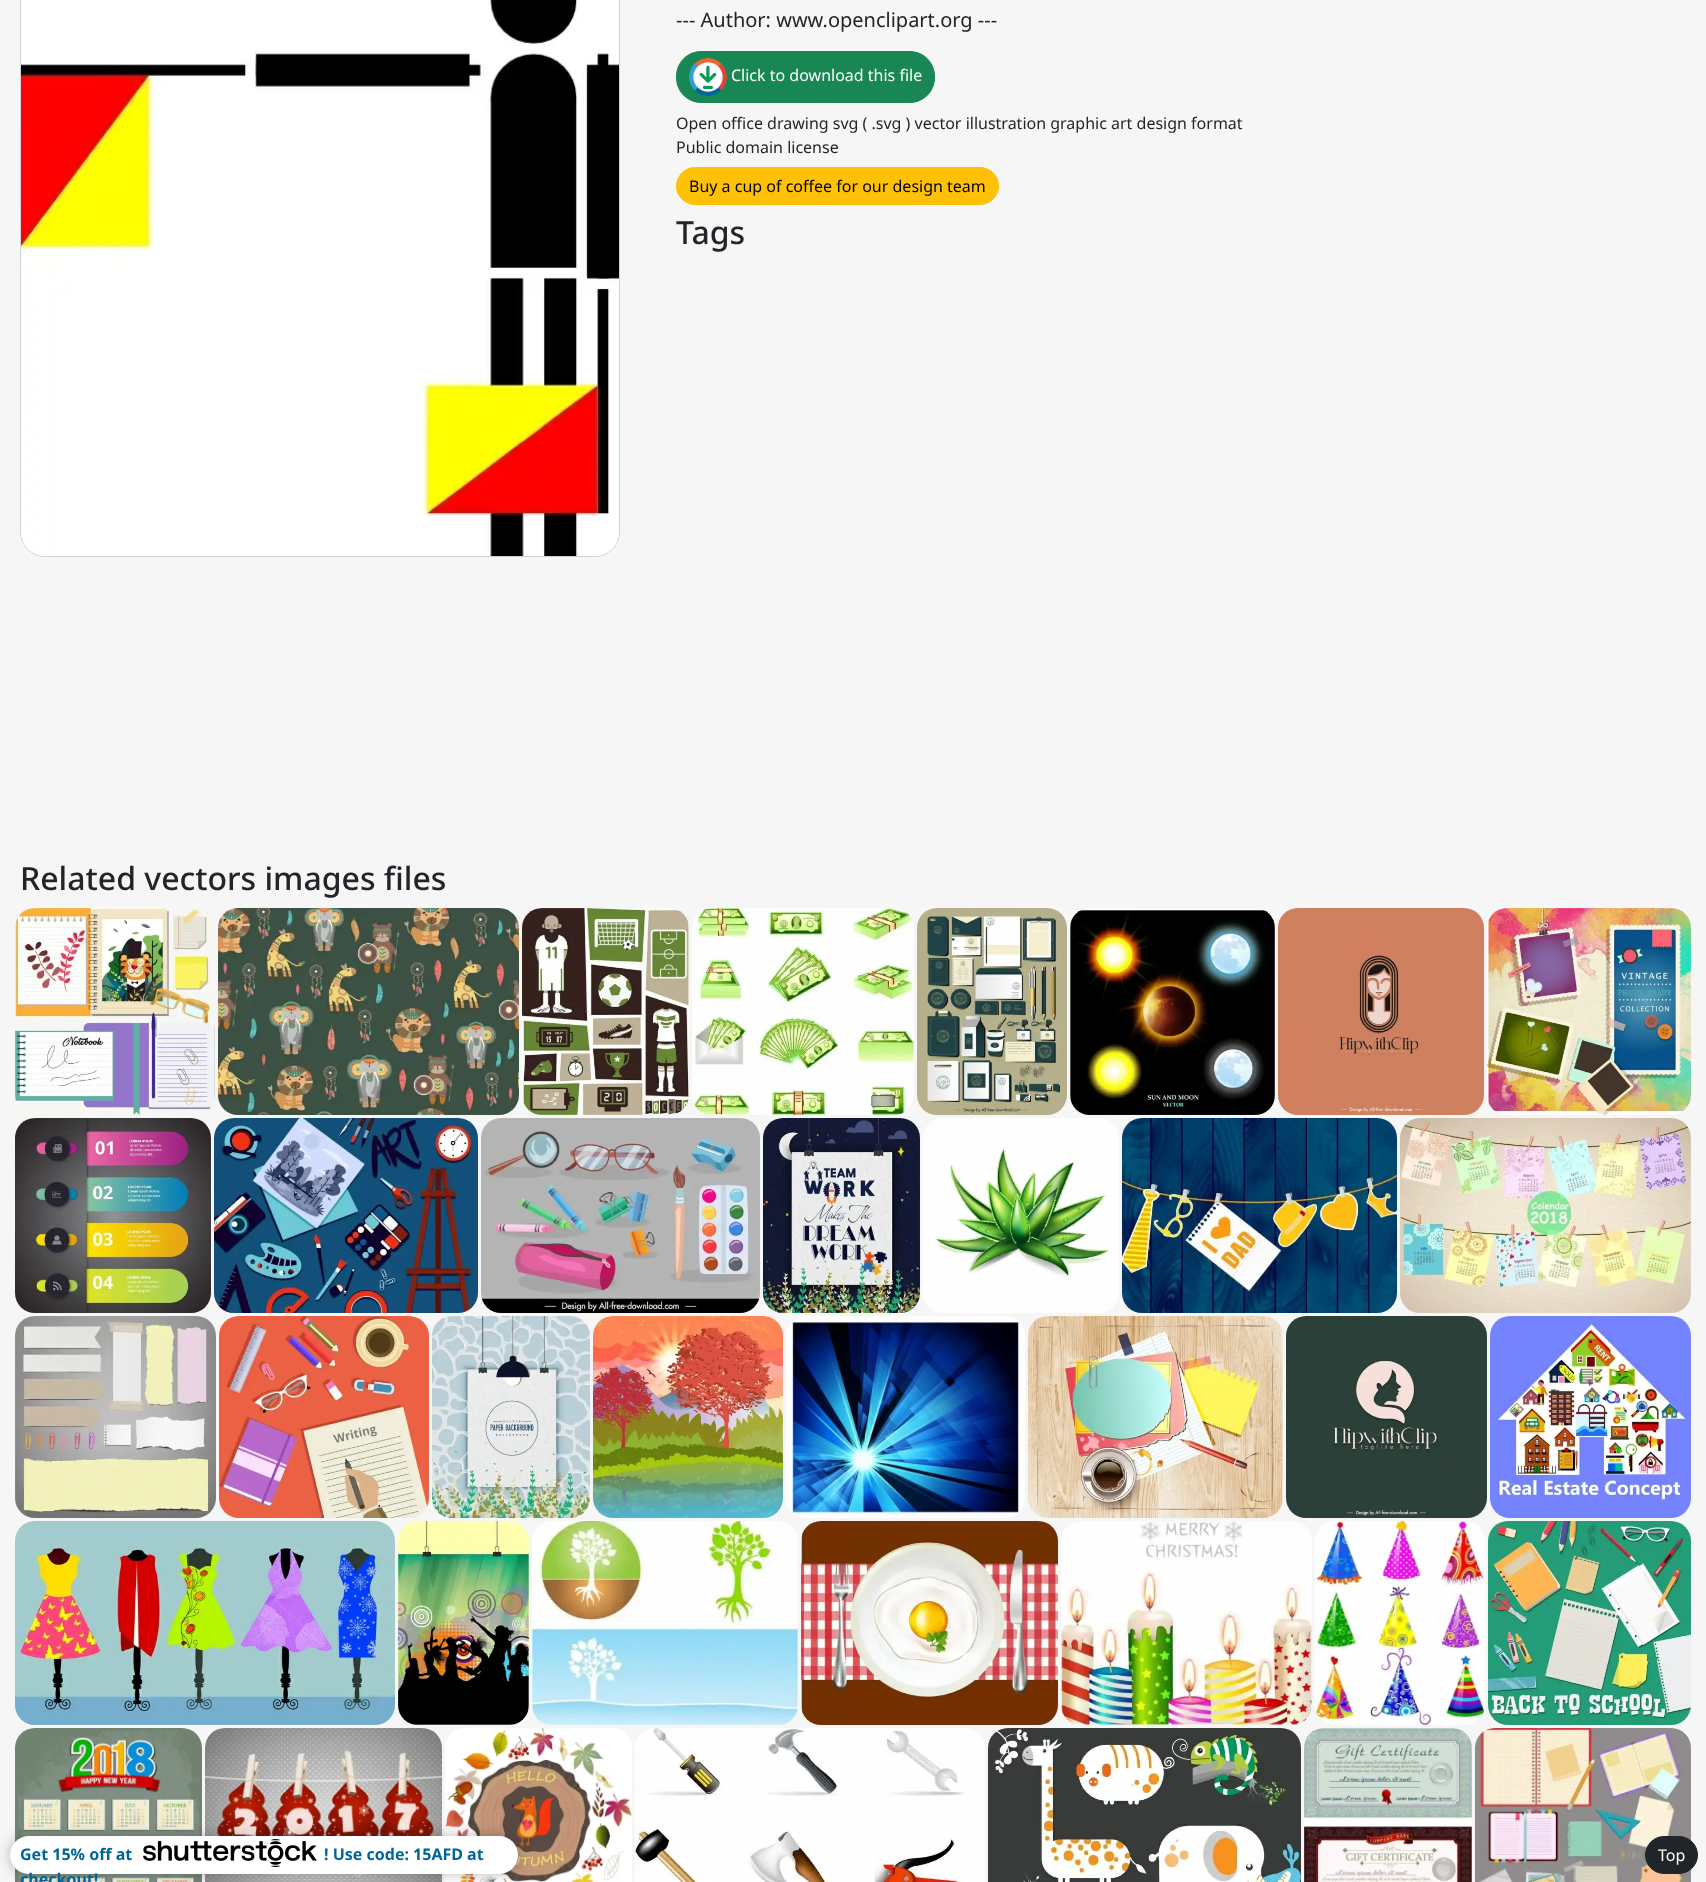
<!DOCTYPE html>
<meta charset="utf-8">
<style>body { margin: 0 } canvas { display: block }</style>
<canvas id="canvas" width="1706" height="1882"></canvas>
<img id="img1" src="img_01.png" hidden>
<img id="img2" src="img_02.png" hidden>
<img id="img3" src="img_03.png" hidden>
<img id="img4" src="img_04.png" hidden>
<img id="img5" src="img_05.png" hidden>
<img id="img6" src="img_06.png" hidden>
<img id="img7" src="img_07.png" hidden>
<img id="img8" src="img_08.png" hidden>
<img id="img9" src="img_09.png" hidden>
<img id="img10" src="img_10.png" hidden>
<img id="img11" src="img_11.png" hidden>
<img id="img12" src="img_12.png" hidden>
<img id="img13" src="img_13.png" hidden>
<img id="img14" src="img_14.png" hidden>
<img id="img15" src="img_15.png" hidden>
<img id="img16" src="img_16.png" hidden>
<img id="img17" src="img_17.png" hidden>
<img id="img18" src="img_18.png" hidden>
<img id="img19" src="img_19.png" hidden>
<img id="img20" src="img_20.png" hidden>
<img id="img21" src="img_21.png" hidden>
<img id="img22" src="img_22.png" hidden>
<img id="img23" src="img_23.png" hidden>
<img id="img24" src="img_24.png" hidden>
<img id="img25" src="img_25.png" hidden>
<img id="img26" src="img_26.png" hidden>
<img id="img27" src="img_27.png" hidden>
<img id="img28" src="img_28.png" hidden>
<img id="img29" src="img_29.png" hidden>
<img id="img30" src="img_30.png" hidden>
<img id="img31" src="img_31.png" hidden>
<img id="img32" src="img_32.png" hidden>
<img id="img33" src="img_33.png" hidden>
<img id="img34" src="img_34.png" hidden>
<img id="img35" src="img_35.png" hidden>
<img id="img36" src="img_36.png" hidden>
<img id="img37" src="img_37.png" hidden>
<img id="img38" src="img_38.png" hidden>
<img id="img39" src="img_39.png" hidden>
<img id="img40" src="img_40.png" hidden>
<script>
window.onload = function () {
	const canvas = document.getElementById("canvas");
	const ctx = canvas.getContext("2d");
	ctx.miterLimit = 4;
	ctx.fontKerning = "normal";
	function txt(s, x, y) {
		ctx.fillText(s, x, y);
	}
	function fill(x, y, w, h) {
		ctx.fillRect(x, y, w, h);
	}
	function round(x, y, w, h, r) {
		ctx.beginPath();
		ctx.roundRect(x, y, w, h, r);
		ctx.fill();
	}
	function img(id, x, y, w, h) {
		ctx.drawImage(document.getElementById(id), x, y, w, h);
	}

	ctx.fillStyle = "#F6F6F6";
	fill(0, 0, 1706, 1882);
	ctx.beginPath();
	ctx.roundRect(20.5, -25.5, 599, 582, 24.5);
	ctx.strokeStyle = "#CED4DA";
	ctx.stroke();
	img("img1", 21, 0, 598, 556);
	ctx.fillStyle = "#198754";
	ctx.beginPath();
	ctx.roundRect(676.5, 51.5, 258, 51, 24.5);
	ctx.fill();
	ctx.strokeStyle = "#198754";
	ctx.stroke();
	img("img2", 689, 58, 38, 38);
	ctx.fillStyle = "#FFC107";
	ctx.beginPath();
	ctx.roundRect(676.5, 167.5, 322, 37, 18.5);
	ctx.fill();
	ctx.strokeStyle = "#FFC107";
	ctx.stroke();
	img("img3", 15, 908, 200, 207);
	img("img4", 218, 908, 301, 207);
	img("img5", 522, 908, 167, 207);
	img("img6", 692, 908, 222, 207);
	img("img7", 917, 908, 150, 207);
	img("img8", 1070, 908, 205, 207);
	img("img9", 1278, 908, 206, 207);
	img("img10", 1487, 908, 204, 207);
	img("img11", 15, 1118, 196, 195);
	img("img12", 214, 1118, 264, 195);
	img("img13", 481, 1118, 279, 195);
	img("img14", 763, 1118, 157, 195);
	img("img15", 923, 1118, 196, 195);
	img("img16", 1122, 1118, 275, 195);
	img("img17", 1400, 1118, 291, 195);
	img("img18", 15, 1316, 201, 202);
	img("img19", 219, 1316, 210, 202);
	img("img20", 432, 1316, 158, 202);
	img("img21", 593, 1316, 190, 202);
	img("img22", 786, 1316, 239, 202);
	img("img23", 1028, 1316, 255, 202);
	img("img24", 1286, 1316, 201, 202);
	img("img25", 1490, 1316, 201, 202);
	img("img26", 15, 1521, 380, 204);
	img("img27", 398, 1521, 131, 204);
	img("img28", 532, 1521, 266, 204);
	img("img29", 801, 1521, 257, 204);
	img("img30", 1061, 1521, 251, 204);
	img("img31", 1315, 1521, 170, 204);
	img("img32", 1488, 1521, 203, 204);
	img("img33", 15, 1728, 187, 154);
	img("img34", 205, 1728, 237, 154);
	img("img35", 445, 1728, 187, 154);
	img("img36", 635, 1728, 350, 154);
	img("img37", 988, 1728, 313, 154);
	img("img38", 1304, 1728, 168, 154);
	img("img39", 1475, 1728, 216, 154);
	ctx.fillStyle = "rgba(35, 31, 32, 0.3)";
	ctx.filter = "blur(6.5px)";
	ctx.beginPath();
	ctx.roundRect(10, 1836, 508, 38, 19);
	ctx.fill();
	ctx.filter = "none";
	ctx.fillStyle = "#FFFFFF";
	round(10, 1836, 508, 38, 19);
	img("img40", 143, 1839, 174, 28);
	ctx.fillStyle = "#212529";
	ctx.beginPath();
	ctx.roundRect(1645.5, 1836.5, 52, 37, 18.5);
	ctx.fill();
	ctx.strokeStyle = "#212529";
	ctx.stroke();
	ctx.font = "20px Noto Sans";
	txt("--- Author: www.openclipart.org ---", 676, 27);
	ctx.font = "16px Noto Sans";
	ctx.fillStyle = "#FFFFFF";
	txt("Click to download this file", 731, 81);
	ctx.fillStyle = "#212529";
	txt("Open office drawing svg ( .svg ) vector illustration graphic art design format", 676, 129);
	txt("Public domain license", 676, 153);
	ctx.fillStyle = "#000000";
	txt("Buy a cup of coffee for our design team", 689, 192);
	ctx.font = "500 32px Noto Sans";
	ctx.fillStyle = "#212529";
	txt("Tags", 676, 244);
	txt("Related vectors images files", 20, 890);
	ctx.font = "bold 16px Noto Sans";
	ctx.fillStyle = "#006699";
	txt("Get 15% off at", 20, 1860);
	txt("! Use code: 15AFD at", 324, 1860);
	txt("checkout!", 20, 1885);
	ctx.font = "16px Noto Sans";
	ctx.fillStyle = "#FFFFFF";
	txt("Top", 1658, 1861);
};
</script>
